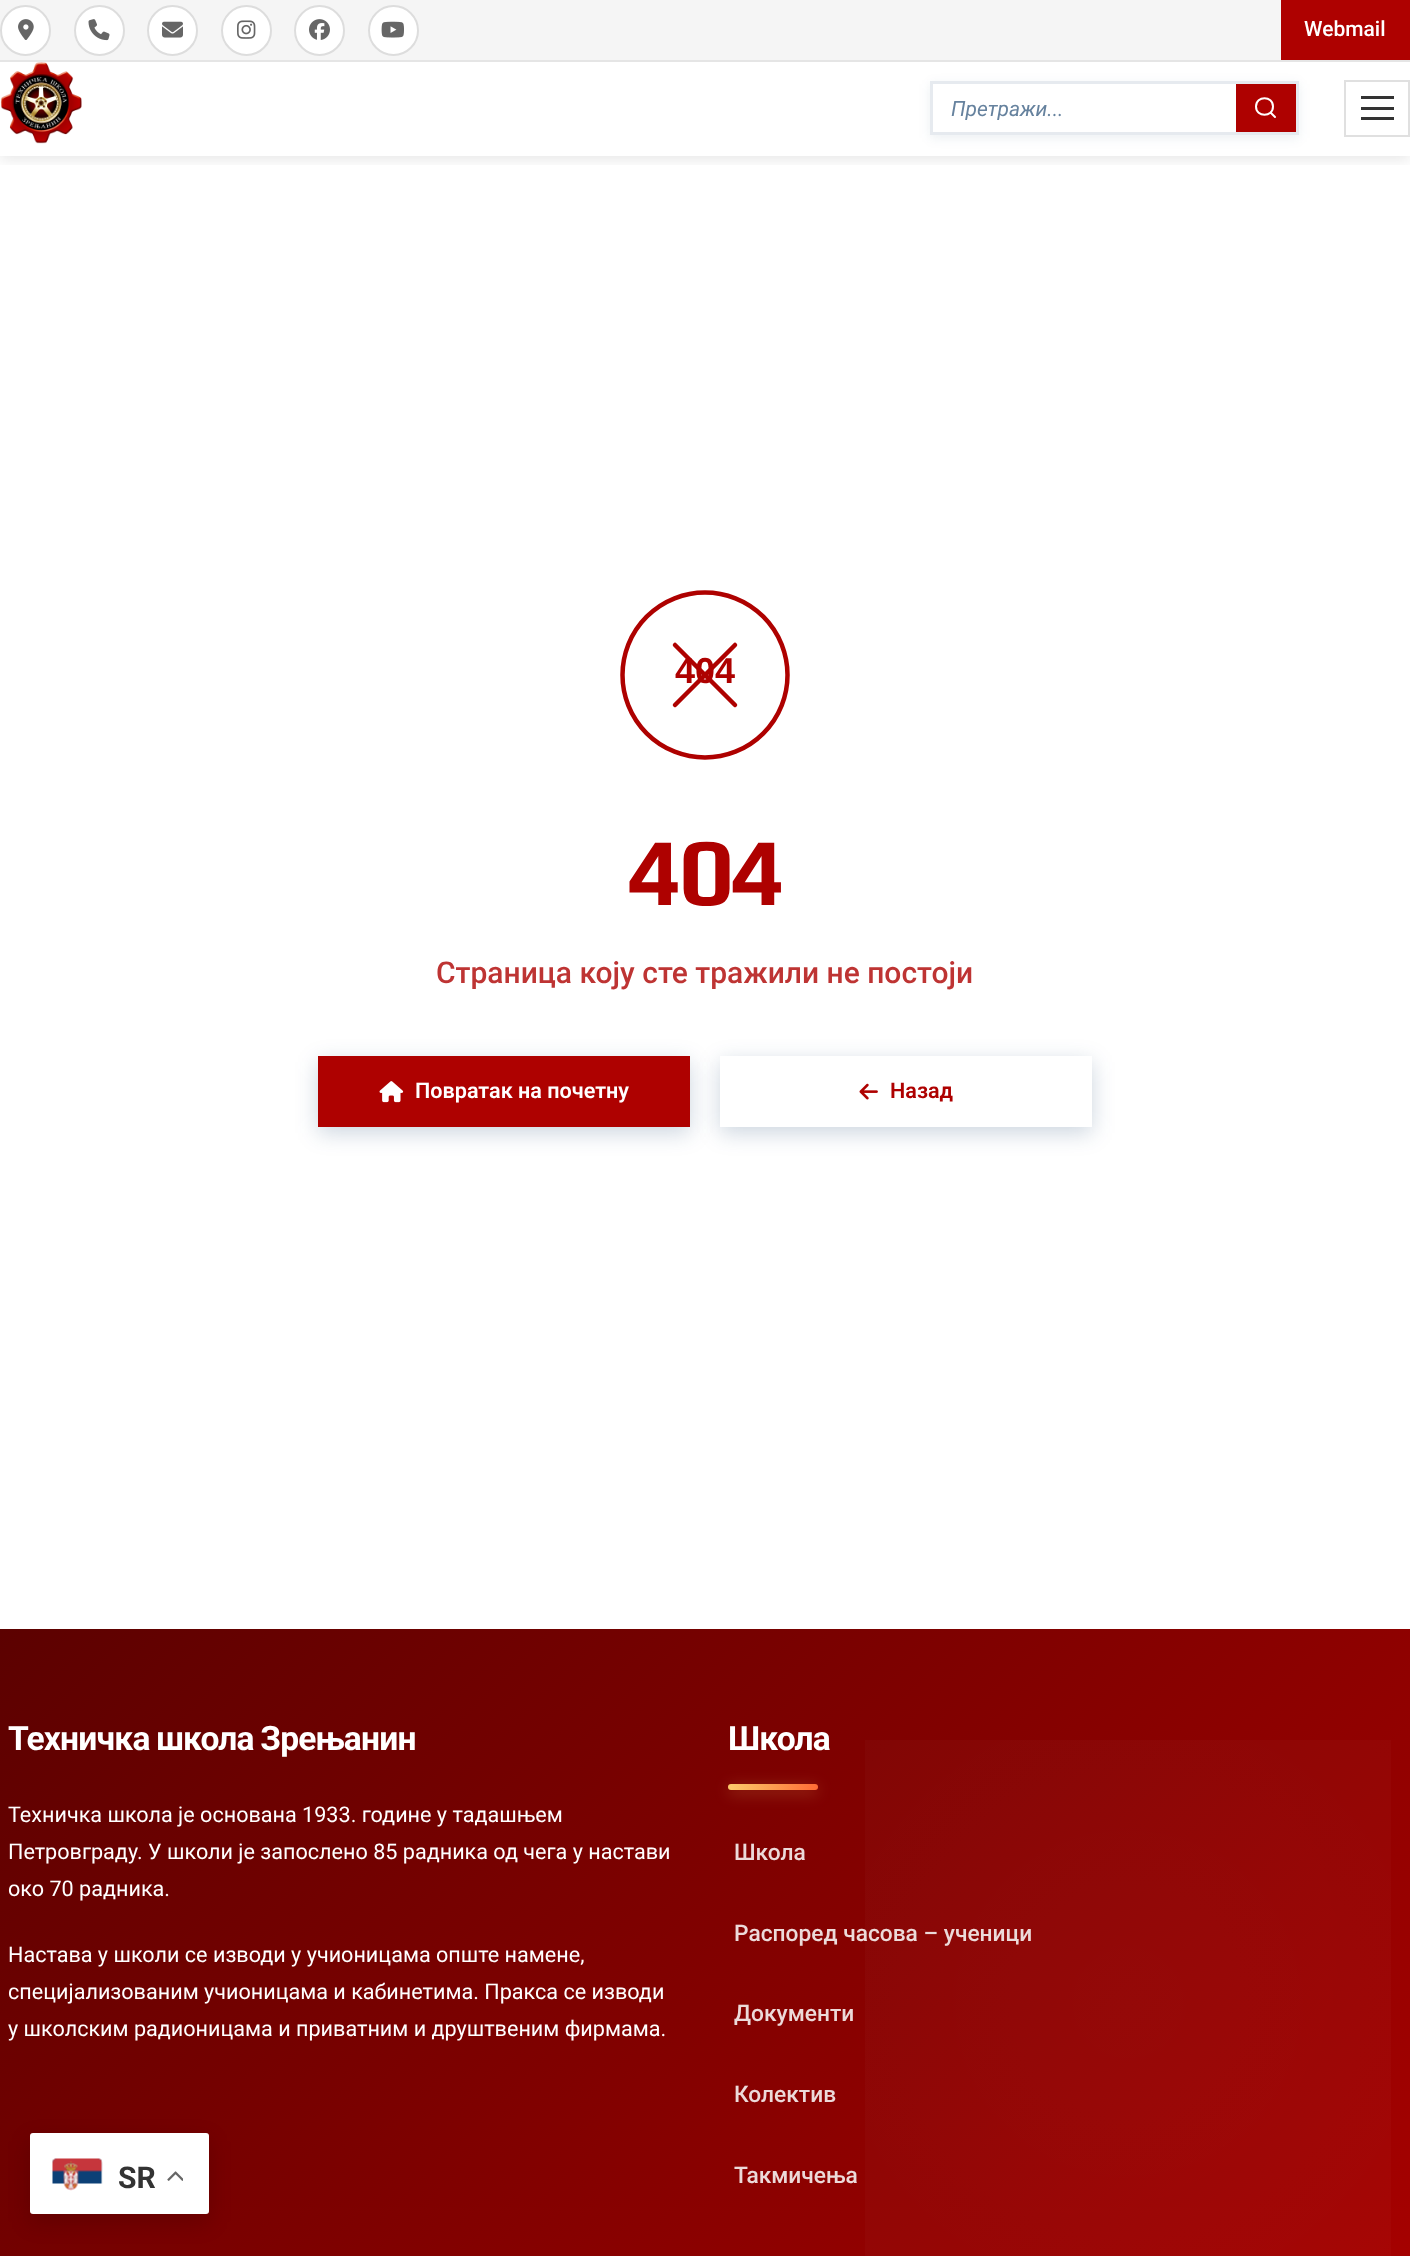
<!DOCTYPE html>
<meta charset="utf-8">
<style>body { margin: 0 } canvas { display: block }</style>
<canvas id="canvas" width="1410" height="2256"></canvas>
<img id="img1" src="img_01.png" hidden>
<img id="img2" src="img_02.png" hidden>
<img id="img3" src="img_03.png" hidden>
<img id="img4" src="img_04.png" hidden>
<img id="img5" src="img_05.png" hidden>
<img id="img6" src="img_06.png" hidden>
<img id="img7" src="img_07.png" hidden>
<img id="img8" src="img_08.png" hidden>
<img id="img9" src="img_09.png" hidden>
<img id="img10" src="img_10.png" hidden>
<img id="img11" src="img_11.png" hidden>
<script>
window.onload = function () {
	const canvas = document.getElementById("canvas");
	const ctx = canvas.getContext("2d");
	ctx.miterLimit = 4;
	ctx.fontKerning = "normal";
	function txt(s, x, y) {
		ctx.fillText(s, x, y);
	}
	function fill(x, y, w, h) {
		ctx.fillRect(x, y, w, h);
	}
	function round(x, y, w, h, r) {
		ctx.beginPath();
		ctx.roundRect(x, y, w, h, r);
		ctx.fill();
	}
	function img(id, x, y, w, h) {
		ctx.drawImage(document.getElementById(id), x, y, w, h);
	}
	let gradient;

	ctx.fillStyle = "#FFFFFF";
	fill(0, 0, 1410, 2256);
	ctx.save();
	ctx.beginPath();
	ctx.rect(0, 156, 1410, 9);
	ctx.clip();
	ctx.fillStyle = "rgba(0, 0, 0, 0.1)";
	ctx.filter = "blur(7.5px)";
	ctx.beginPath();
	ctx.rect(0, 65, 1410, 94);
	ctx.fill();
	ctx.filter = "none";
	ctx.restore();
	ctx.fillStyle = "#F5F5F5";
	fill(0, 0, 1281, 60);
	ctx.fillStyle = "#E5E5E5";
	fill(0, 60, 1410, 2);
	ctx.fillStyle = "#FFFFFF";
	ctx.beginPath();
	ctx.arc(25.5, 30.5, 24.5, 0, Math.PI * 2);
	ctx.fill();
	ctx.strokeStyle = "#DDDDDD";
	ctx.lineWidth = 2;
	ctx.stroke();
	img("img1", 18, 19, 16, 21);
	ctx.beginPath();
	ctx.arc(99.5, 30.5, 24.5, 0, Math.PI * 2);
	ctx.fill();
	ctx.stroke();
	img("img2", 88, 19, 22, 22);
	ctx.beginPath();
	ctx.arc(172.5, 30.5, 24.5, 0, Math.PI * 2);
	ctx.fill();
	ctx.stroke();
	img("img3", 162, 21, 21, 17);
	ctx.beginPath();
	ctx.arc(246.5, 30.5, 24.5, 0, Math.PI * 2);
	ctx.fill();
	ctx.stroke();
	img("img4", 237, 20, 19, 19);
	ctx.beginPath();
	ctx.arc(319.5, 30.5, 24.5, 0, Math.PI * 2);
	ctx.fill();
	ctx.stroke();
	img("img5", 309, 19, 21, 21);
	ctx.beginPath();
	ctx.arc(393.5, 30.5, 24.5, 0, Math.PI * 2);
	ctx.fill();
	ctx.stroke();
	img("img6", 381, 21, 23, 17);
	ctx.fillStyle = "#AE0100";
	fill(1281, 0, 129, 60);
	img("img7", 0, 62, 82, 82);
	ctx.save();
	ctx.beginPath();
	ctx.moveTo(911, 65);
	ctx.lineTo(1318, 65);
	ctx.lineTo(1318, 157);
	ctx.lineTo(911, 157);
	ctx.closePath();
	ctx.moveTo(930, 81);
	ctx.lineTo(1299, 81);
	ctx.lineTo(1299, 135);
	ctx.lineTo(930, 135);
	ctx.closePath();
	ctx.clip("evenodd");
	ctx.fillStyle = "rgba(0, 47, 93, 0.08)";
	ctx.filter = "blur(6px)";
	ctx.beginPath();
	ctx.rect(930, 84, 369, 54);
	ctx.fill();
	ctx.filter = "none";
	ctx.restore();
	ctx.strokeStyle = "#E6EAEF";
	ctx.lineWidth = 3;
	ctx.strokeRect(931.5, 82.5, 366, 51);
	fill(1236, 84, 60, 48);
	ctx.beginPath();
	ctx.moveTo(1275, 117);
	ctx.lineTo(1270.5, 112.5);
	ctx.closePath();
	ctx.moveTo(1273, 106.5);
	ctx.bezierCurveTo(1273, 117.5, 1256, 117.5, 1256, 106.5);
	ctx.bezierCurveTo(1256, 95.5, 1273, 95.5, 1273, 106.5);
	ctx.closePath();
	ctx.strokeStyle = "#FFFFFF";
	ctx.lineWidth = 2;
	ctx.lineCap = "round";
	ctx.lineJoin = "round";
	ctx.stroke();
	ctx.strokeStyle = "#E0E0E0";
	ctx.lineJoin = "miter";
	ctx.strokeRect(1345, 81, 64, 55);
	ctx.fillStyle = "#333333";
	fill(1361, 96, 33, 3);
	fill(1361, 107, 33, 3);
	fill(1361, 117, 33, 3);
	ctx.beginPath();
	ctx.arc(705, 675, 82.5, 0, Math.PI * 2);
	ctx.strokeStyle = "#AE0100";
	ctx.lineWidth = 4.5;
	ctx.stroke();
	ctx.beginPath();
	ctx.moveTo(675, 645);
	ctx.lineTo(735, 705);
	ctx.moveTo(735, 645);
	ctx.lineTo(675, 705);
	ctx.stroke();
	ctx.fillStyle = "rgba(0, 47, 93, 0.2)";
	ctx.filter = "blur(11px)";
	ctx.beginPath();
	ctx.rect(318, 1062, 372, 71);
	ctx.fill();
	ctx.filter = "none";
	ctx.fillStyle = "#AE0100";
	fill(318, 1056, 372, 71);
	img("img8", 379, 1081, 25, 22);
	ctx.fillStyle = "rgba(0, 47, 93, 0.2)";
	ctx.filter = "blur(11px)";
	ctx.beginPath();
	ctx.rect(720, 1062, 372, 71);
	ctx.fill();
	ctx.filter = "none";
	ctx.fillStyle = "#FFFFFF";
	fill(720, 1056, 372, 71);
	img("img9", 859, 1083, 19, 17);
	gradient = ctx.createLinearGradient(-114, 1743, 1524, 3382);
	gradient.addColorStop(0, "#5C0100");
	gradient.addColorStop(0.7, "#AE0100");
	gradient.addColorStop(1, "#600202");
	ctx.fillStyle = gradient;
	fill(0, 1629, 1410, 627);
	ctx.fillStyle = "rgba(251, 204, 108, 0.3)";
	ctx.filter = "blur(7.5px)";
	ctx.beginPath();
	ctx.roundRect(728, 1787, 90, 6, 3);
	ctx.fill();
	ctx.filter = "none";
	gradient = ctx.createLinearGradient(728, 1787, 818, 1787);
	gradient.addColorStop(0, "#FBCC6C");
	gradient.addColorStop(1, "#FF6B35");
	ctx.fillStyle = gradient;
	round(728, 1784, 90, 6, 3);
	gradient = ctx.createRadialGradient(1128, 2003, 0, 1128, 2003, 1872);
	gradient.addColorStop(0, "rgba(255, 255, 255, 0.03)");
	gradient.addColorStop(0.5, "rgba(255, 255, 255, 0)");
	ctx.fillStyle = gradient;
	fill(865, 1740, 526, 516);
	ctx.fillStyle = "rgba(0, 0, 0, 0.15)";
	ctx.filter = "blur(11px)";
	ctx.beginPath();
	ctx.roundRect(30, 2141, 179, 81, 3);
	ctx.fill();
	ctx.filter = "none";
	ctx.fillStyle = "#FFFFFF";
	round(30, 2133, 179, 81, 3);
	img("img10", 52, 2158, 51, 33);
	img("img11", 167, 2171, 16, 10);
	ctx.font = "500 21px Roboto";
	txt("Webmail", 1304, 36);
	ctx.save();
	ctx.beginPath();
	ctx.rect(951, 96, 246, 24);
	ctx.clip();
	ctx.font = "italic 21px Roboto";
	ctx.fillStyle = "#66829E";
	txt("Претражи...", 951, 116);
	ctx.restore();
	ctx.font = "bold 36px Liberation Sans";
	ctx.fillStyle = "#AE0100";
	txt("404", 675, 683);
	ctx.letterSpacing = "-4px";
	ctx.font = "bold 96px Play";
	txt("404", 627, 905);
	ctx.letterSpacing = "0px";
	ctx.font = "500 30px Roboto";
	ctx.fillStyle = "#BE3433";
	txt("Страница коју сте тражили не постоји", 436, 983);
	ctx.font = "600 21.6px Roboto";
	ctx.fillStyle = "#FFFFFF";
	txt("Повратак на почетну", 415, 1098);
	ctx.fillStyle = "#AE0100";
	txt("Назад", 890, 1098);
	ctx.letterSpacing = "-0.8px";
	ctx.wordSpacing = "-1px";
	ctx.font = "bold 33.6px Roboto";
	ctx.fillStyle = "#FFFFFF";
	txt("Техничка школа Зрењанин", 8, 1750);
	ctx.letterSpacing = "0px";
	ctx.wordSpacing = "0px";
	ctx.font = "21.6px Roboto";
	txt("Техничка школа је основана 1933. године у тадашњем", 8, 1822);
	txt("Петровграду. У школи је запослено 85 радника од чега у настави", 8, 1859);
	txt("око 70 радника.", 8, 1896);
	txt("Настава у школи се изводи у учионицама опште намене,", 8, 1962);
	txt("специјализованим учионицама и кабинетима. Пракса се изводи", 8, 1999);
	txt("у школским радионицама и приватним и друштвеним фирмама.", 8, 2036);
	ctx.letterSpacing = "-0.8px";
	ctx.font = "bold 33.6px Roboto";
	txt("Школа", 728, 1750);
	ctx.letterSpacing = "0px";
	ctx.font = "500 22.75px Roboto";
	ctx.fillStyle = "#ECDAD9";
	txt("Школа", 734, 1860);
	txt("Распоред часова – ученици", 734, 1941);
	txt("Документи", 734, 2021);
	txt("Колектив", 734, 2102);
	txt("Такмичења", 734, 2183);
	ctx.font = "bold 30px Roboto";
	ctx.fillStyle = "#333333";
	txt("SR", 118, 2188);
};
</script>
